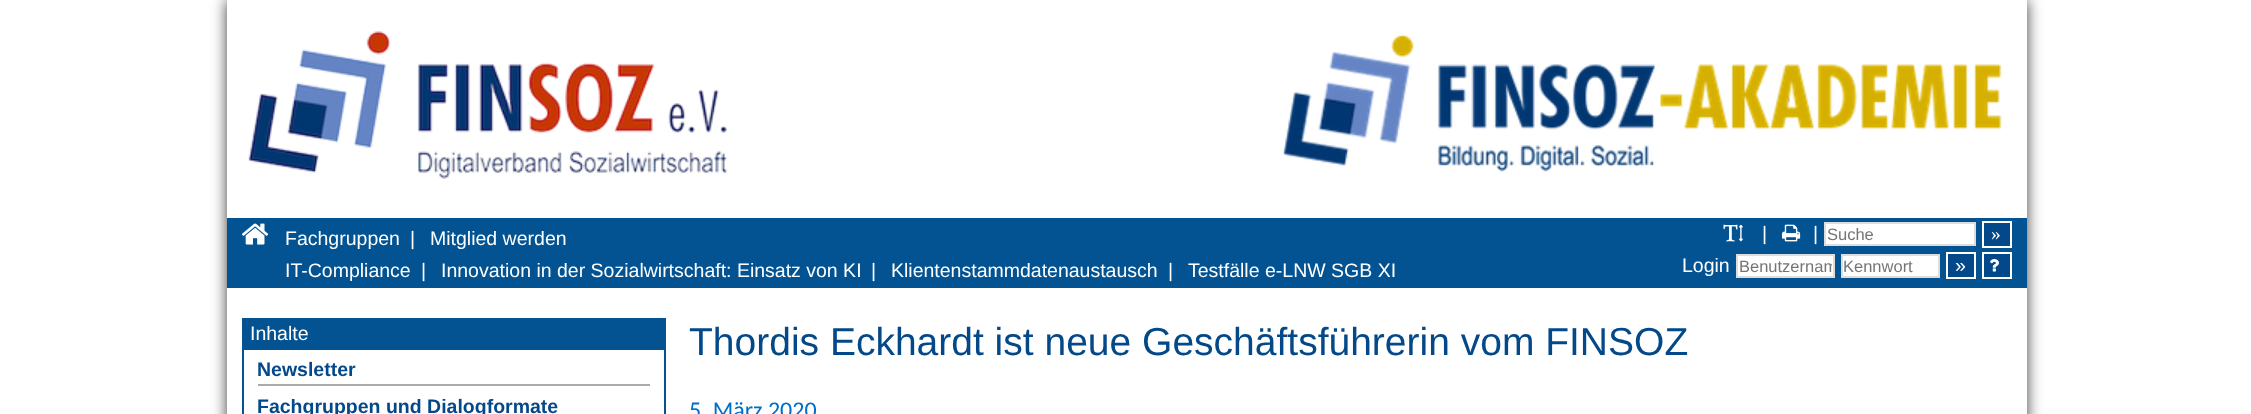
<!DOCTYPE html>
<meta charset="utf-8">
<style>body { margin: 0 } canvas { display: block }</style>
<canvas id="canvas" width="2251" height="414"></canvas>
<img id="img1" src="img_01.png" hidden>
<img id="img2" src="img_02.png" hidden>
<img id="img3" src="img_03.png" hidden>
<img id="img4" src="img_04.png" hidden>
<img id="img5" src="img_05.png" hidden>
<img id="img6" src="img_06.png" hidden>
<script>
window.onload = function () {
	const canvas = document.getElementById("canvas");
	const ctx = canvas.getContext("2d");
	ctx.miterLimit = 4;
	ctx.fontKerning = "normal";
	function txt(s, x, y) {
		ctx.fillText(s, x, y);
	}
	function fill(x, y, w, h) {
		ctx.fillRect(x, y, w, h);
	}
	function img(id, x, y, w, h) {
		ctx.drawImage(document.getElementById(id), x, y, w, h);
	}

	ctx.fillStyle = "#FFFFFF";
	fill(0, 0, 2251, 414);
	ctx.fillStyle = "#3E3E3E";
	ctx.filter = "blur(7.5px)";
	ctx.beginPath();
	ctx.rect(227, 0, 1800, 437);
	ctx.fill();
	ctx.filter = "none";
	ctx.fillStyle = "#FFFFFF";
	fill(227, 0, 1800, 414);
	img("img1", 248, 30, 480, 149);
	img("img2", 1283, 34, 719, 138);
	ctx.fillStyle = "#035392";
	fill(227, 218, 1800, 70);
	img("img3", 242, 223, 27, 22);
	img("img4", 1723, 224, 20, 18);
	img("img5", 1782, 224, 19, 18);
	ctx.fillStyle = "#FFFFFF";
	ctx.beginPath();
	ctx.rect(1825, 223, 150, 22);
	ctx.fill();
	ctx.strokeStyle = "#DDDDDD";
	ctx.lineWidth = 2;
	ctx.stroke();
	ctx.fillStyle = "#034889";
	ctx.beginPath();
	ctx.rect(1983, 222, 28, 25);
	ctx.fill();
	ctx.strokeStyle = "#FFFFFF";
	ctx.stroke();
	ctx.fillStyle = "#FFFFFF";
	ctx.beginPath();
	ctx.rect(1737, 255, 97, 22);
	ctx.fill();
	ctx.strokeStyle = "#DDDDDD";
	ctx.stroke();
	ctx.beginPath();
	ctx.rect(1842, 255, 97, 22);
	ctx.fill();
	ctx.stroke();
	ctx.fillStyle = "#034889";
	ctx.beginPath();
	ctx.rect(1947, 253, 28, 25);
	ctx.fill();
	ctx.strokeStyle = "#FFFFFF";
	ctx.stroke();
	ctx.beginPath();
	ctx.rect(1983, 253, 28, 25);
	ctx.fill();
	ctx.stroke();
	img("img6", 1990, 259, 9, 13);
	ctx.strokeStyle = "#035392";
	ctx.strokeRect(243, 319, 422, 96);
	ctx.fillStyle = "#035392";
	fill(244, 320, 420, 30);
	ctx.fillStyle = "#AAAAAA";
	fill(258, 384, 392, 2);
	ctx.font = "19.5px Liberation Sans";
	ctx.fillStyle = "#FFFFFF";
	txt("Fachgruppen", 285, 245);
	txt("|", 410, 245);
	txt("Mitglied werden", 430, 245);
	txt("IT-Compliance", 285, 277);
	txt("|", 421, 277);
	txt("Innovation in der Sozialwirtschaft: Einsatz von KI", 441, 277);
	txt("|", 871, 277);
	txt("Klientenstammdatenaustausch", 891, 277);
	txt("|", 1168, 277);
	txt("Testfälle e-LNW SGB XI", 1188, 277);
	txt("|", 1762, 240);
	txt("|", 1813, 240);
	ctx.font = "16.5px Liberation Sans";
	ctx.fillStyle = "#757575";
	txt("Suche", 1827, 240);
	ctx.font = "19.5px Liberation Serif";
	ctx.fillStyle = "#FFFFFF";
	txt("»", 1991, 240);
	ctx.font = "19.5px Liberation Sans";
	txt("Login", 1682, 272);
	ctx.save();
	ctx.beginPath();
	ctx.rect(1739, 257, 93, 18);
	ctx.clip();
	ctx.font = "16.5px Liberation Sans";
	ctx.fillStyle = "#757575";
	txt("Benutzernam", 1739, 272);
	ctx.restore();
	ctx.font = "16.5px Liberation Sans";
	ctx.fillStyle = "#757575";
	txt("Kennwort", 1843, 272);
	ctx.font = "19.5px Liberation Sans";
	ctx.fillStyle = "#FFFFFF";
	txt("»", 1955, 272);
	txt("Inhalte", 250, 340);
	ctx.font = "bold 19.5px Liberation Sans";
	ctx.fillStyle = "#034889";
	txt("Newsletter", 257, 376);
	txt("Fachgruppen und Dialogformate", 257, 413);
	ctx.font = "39px Liberation Sans";
	txt("Thordis Eckhardt ist neue Geschäftsführerin vom FINSOZ", 689, 355);
	ctx.font = "24px Carlito";
	ctx.fillStyle = "#006FC9";
	txt("5. März 2020", 689, 418);
};
</script>
